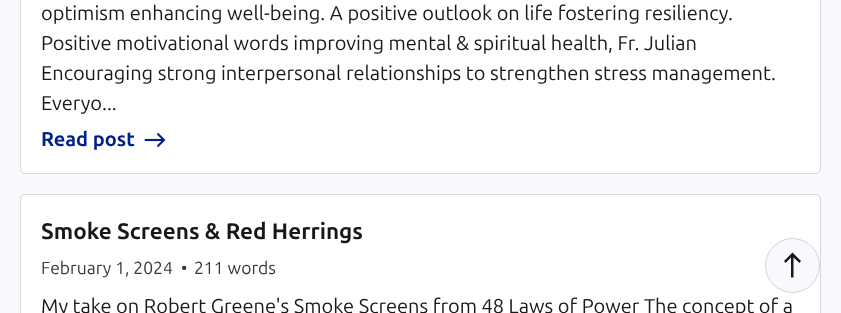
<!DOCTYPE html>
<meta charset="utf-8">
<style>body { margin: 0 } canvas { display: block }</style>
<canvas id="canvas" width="841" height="313"></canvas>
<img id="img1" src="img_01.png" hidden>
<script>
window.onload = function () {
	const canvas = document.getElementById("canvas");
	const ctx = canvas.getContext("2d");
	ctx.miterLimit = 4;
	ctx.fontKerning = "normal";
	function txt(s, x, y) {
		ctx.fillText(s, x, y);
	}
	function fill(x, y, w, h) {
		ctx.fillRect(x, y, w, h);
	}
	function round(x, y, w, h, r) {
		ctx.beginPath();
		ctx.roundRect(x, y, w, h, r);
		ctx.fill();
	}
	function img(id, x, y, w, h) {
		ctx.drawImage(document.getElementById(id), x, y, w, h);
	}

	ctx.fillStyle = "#F8F9FC";
	fill(0, 0, 841, 313);
	ctx.fillStyle = "#FFFFFF";
	round(20, -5, 801, 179, 5);
	ctx.beginPath();
	ctx.roundRect(20.5, -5.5, 800, 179, 4.5);
	ctx.strokeStyle = "rgba(24, 24, 24, 0.16)";
	ctx.stroke();
	img("img1", 144, 132, 22, 16);
	round(20, 194, 801, 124, 5);
	ctx.beginPath();
	ctx.roundRect(20.5, 194.5, 800, 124, 4.5);
	ctx.stroke();
	ctx.fillStyle = "#F8F9FC";
	ctx.beginPath();
	ctx.arc(792.5, 265.5, 27.5, 0, Math.PI * 2);
	ctx.fill();
	ctx.beginPath();
	ctx.arc(792.5, 265.5, 27, 0, Math.PI * 2);
	ctx.stroke();
	ctx.fillStyle = "#181818";
	ctx.beginPath();
	ctx.moveTo(793.5, 277.5);
	ctx.lineTo(791, 277.5);
	ctx.lineTo(791, 257.5);
	ctx.lineTo(785.5, 263);
	ctx.lineTo(784, 261);
	ctx.lineTo(792.5, 252.5);
	ctx.lineTo(801, 261);
	ctx.lineTo(799.5, 263);
	ctx.lineTo(793.5, 257.5);
	ctx.closePath();
	ctx.fill();
	ctx.font = "20px Ubuntu";
	txt("optimism enhancing well-being. A positive outlook on life fostering resiliency.", 41, 20);
	txt("Positive motivational words improving mental & spiritual health, Fr. Julian", 41, 50);
	txt("Encouraging strong interpersonal relationships to strengthen stress management.", 41, 80);
	txt("Everyo...", 41, 110);
	ctx.font = "bold 20px Ubuntu";
	ctx.fillStyle = "#00208F";
	txt("Read post", 41, 146);
	ctx.font = "bold 22.5px Ubuntu";
	ctx.fillStyle = "#181818";
	txt("Smoke Screens & Red Herrings", 41, 239);
	ctx.font = "17.5px Ubuntu";
	ctx.fillStyle = "#383838";
	txt("February 1, 2024", 41, 274);
	txt("•", 181, 274);
	txt("211 words", 194, 274);
	ctx.font = "20px Ubuntu";
	ctx.fillStyle = "#181818";
	txt("My take on Robert Greene's Smoke Screens from 48 Laws of Power The concept of a", 41, 313);
};
</script>
